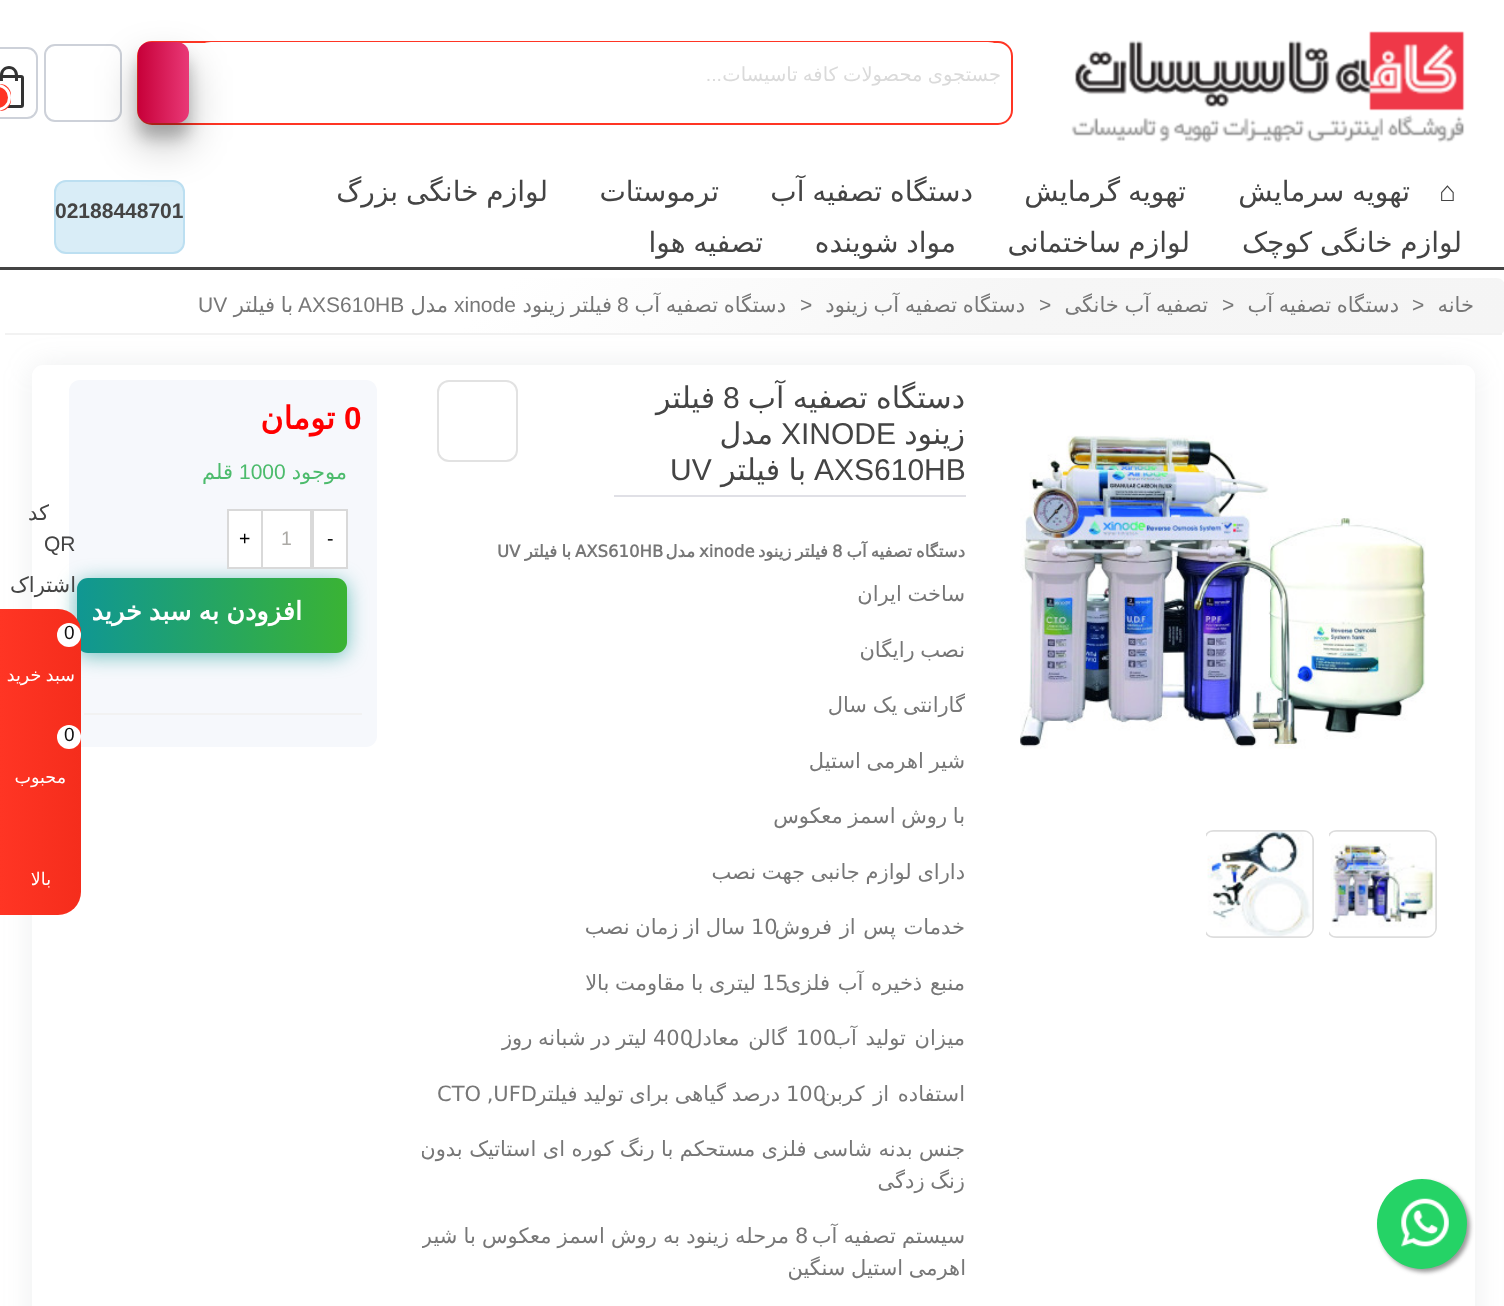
<!DOCTYPE html>
<meta charset="utf-8">
<style>body { margin: 0 } canvas { display: block }</style>
<canvas id="canvas" width="1504" height="1306"></canvas>
<img id="img1" src="img_01.png" hidden>
<img id="img2" src="img_02.png" hidden>
<img id="img3" src="img_03.png" hidden>
<img id="img4" src="img_04.png" hidden>
<img id="img5" src="img_05.png" hidden>
<script>
window.onload = function () {
	const canvas = document.getElementById("canvas");
	const ctx = canvas.getContext("2d");
	ctx.miterLimit = 4;
	ctx.fontKerning = "normal";
	function txt(s, x, y) {
		ctx.fillText(s, x, y);
	}
	function fill(x, y, w, h) {
		ctx.fillRect(x, y, w, h);
	}
	function round(x, y, w, h, r) {
		ctx.beginPath();
		ctx.roundRect(x, y, w, h, r);
		ctx.fill();
	}
	function img(id, x, y, w, h) {
		ctx.drawImage(document.getElementById(id), x, y, w, h);
	}
	let gradient;

	ctx.fillStyle = "#FFFFFF";
	fill(0, 0, 1504, 1306);
	img("img1", 1071, 31, 394, 112);
	ctx.beginPath();
	ctx.roundRect(138, 42, 874, 82, 14);
	ctx.strokeStyle = "#FF3524";
	ctx.lineWidth = 2;
	ctx.stroke();
	round(188, 42, 823, 51, 23);
	ctx.beginPath();
	ctx.roundRect(45, 45, 76, 76, 10);
	ctx.strokeStyle = "#CDD1D9";
	ctx.stroke();
	ctx.fillStyle = "rgba(0, 0, 0, 0.22)";
	ctx.filter = "blur(7.5px)";
	ctx.beginPath();
	ctx.roundRect(138, 57, 51, 81, 12);
	ctx.fill();
	ctx.filter = "none";
	ctx.fillStyle = "#D9EDF7";
	ctx.beginPath();
	ctx.roundRect(55, 181, 129, 72, 11);
	ctx.fill();
	ctx.strokeStyle = "#BCDFF1";
	ctx.stroke();
	ctx.fillStyle = "rgba(0, 0, 0, 0.25)";
	ctx.filter = "blur(21px)";
	ctx.beginPath();
	ctx.roundRect(138, 63, 51, 81, 12);
	ctx.fill();
	ctx.filter = "none";
	gradient = ctx.createLinearGradient(138, 83, 189, 83);
	gradient.addColorStop(0, "#C70039");
	gradient.addColorStop(1, "#E93977");
	ctx.fillStyle = gradient;
	round(138, 42, 51, 81, 12);
	ctx.beginPath();
	ctx.roundRect(-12, 48, 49, 70, 10);
	ctx.strokeStyle = "#CDD1D9";
	ctx.stroke();
	ctx.beginPath();
	ctx.roundRect(-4.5, 76.5, 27, 30, 1.5);
	ctx.strokeStyle = "#333333";
	ctx.lineWidth = 3;
	ctx.stroke();
	ctx.fillStyle = "#333333";
	ctx.beginPath();
	ctx.moveTo(9, 66);
	ctx.bezierCurveTo(14, 66, 18, 70, 18, 75);
	ctx.lineTo(18, 81);
	ctx.lineTo(0, 81);
	ctx.lineTo(0, 75);
	ctx.bezierCurveTo(0, 70, 4, 66, 9, 66);
	ctx.closePath();
	ctx.moveTo(9, 69);
	ctx.bezierCurveTo(16, 69, 15, 76.5, 15, 81);
	ctx.lineTo(3, 81);
	ctx.bezierCurveTo(3, 76.5, 2, 69, 9, 69);
	ctx.closePath();
	ctx.fill("evenodd");
	ctx.fillStyle = "#FF3524";
	ctx.beginPath();
	ctx.roundRect(0, 84, 11, 27, [0, 13.5, 13.5, 0]);
	ctx.fill();
	ctx.beginPath();
	ctx.arc(-2.5, 97.5, 12, 0, Math.PI * 2);
	ctx.strokeStyle = "#FFFFFF";
	ctx.stroke();
	ctx.fillStyle = "#444444";
	fill(0, 267, 1504, 3);
	ctx.save();
	ctx.beginPath();
	ctx.roundRect(0, 278, 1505, 57, 8);
	ctx.clip();
	gradient = ctx.createLinearGradient(1142, 695, 362, -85);
	gradient.addColorStop(0, "#F5F5F5");
	gradient.addColorStop(0.33, "#F6F6F6");
	gradient.addColorStop(0.67, "#FFFFFF");
	gradient.addColorStop(1, "#FFFFFF");
	ctx.fillStyle = gradient;
	ctx.beginPath();
	ctx.moveTo(8, 278);
	ctx.lineTo(1497, 278);
	ctx.bezierCurveTo(1501.5, 278, 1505, 281.5, 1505, 286);
	ctx.lineTo(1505, 333);
	ctx.lineTo(0, 333);
	ctx.lineTo(0, 286);
	ctx.bezierCurveTo(0, 281.5, 3.5, 278, 8, 278);
	ctx.closePath();
	ctx.fill();
	gradient = ctx.createLinearGradient(1142, 751, 362, -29);
	gradient.addColorStop(0, "#F5F5F5");
	gradient.addColorStop(0.33, "#F6F6F6");
	gradient.addColorStop(0.67, "#FFFFFF");
	gradient.addColorStop(1, "#FFFFFF");
	ctx.fillStyle = gradient;
	fill(0, 333, 5, 2);
	ctx.restore();
	ctx.fillStyle = "#F2F2F2";
	fill(5, 333, 1497, 2);
	ctx.fillStyle = "rgba(149, 152, 160, 0.17)";
	ctx.filter = "blur(14px)";
	ctx.beginPath();
	ctx.roundRect(32, 365, 1443, 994, 11);
	ctx.fill();
	ctx.filter = "none";
	ctx.fillStyle = "#FFFFFF";
	round(32, 365, 1443, 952, 11);
	img("img2", 1020, 435, 406, 314);
	ctx.save();
	ctx.beginPath();
	ctx.rect(1329, 830, 108, 117);
	ctx.clip();
	ctx.beginPath();
	ctx.roundRect(1327, 831, 109, 106, 10);
	ctx.strokeStyle = "#DDDDDD";
	ctx.lineWidth = 2;
	ctx.stroke();
	ctx.restore();
	img("img3", 1330, 831, 106, 106);
	ctx.save();
	ctx.beginPath();
	ctx.rect(1206, 830, 108, 117);
	ctx.clip();
	ctx.beginPath();
	ctx.roundRect(1204, 831, 109, 106, 10);
	ctx.strokeStyle = "#DDDDDD";
	ctx.lineWidth = 2;
	ctx.stroke();
	ctx.restore();
	img("img4", 1207, 831, 106, 106);
	ctx.fillStyle = "#E0E0E6";
	fill(614, 495, 352, 2);
	ctx.beginPath();
	ctx.roundRect(438, 381, 79, 80, 11);
	ctx.strokeStyle = "#E2E2E2";
	ctx.lineWidth = 2;
	ctx.stroke();
	ctx.fillStyle = "#F6F8FC";
	round(69, 380, 308, 367, 11);
	ctx.fillStyle = "rgba(16, 151, 146, 0.58)";
	ctx.filter = "blur(10px)";
	ctx.beginPath();
	ctx.roundRect(77, 581, 270, 75, 11);
	ctx.fill();
	ctx.filter = "none";
	ctx.fillStyle = "#FFFFFF";
	ctx.beginPath();
	ctx.rect(313, 510, 34, 58);
	ctx.fill();
	ctx.strokeStyle = "#D9D9D9";
	ctx.stroke();
	ctx.beginPath();
	ctx.rect(262, 510, 49, 58);
	ctx.fill();
	ctx.stroke();
	ctx.beginPath();
	ctx.rect(228, 510, 34, 58);
	ctx.fill();
	ctx.stroke();
	gradient = ctx.createLinearGradient(77, 615, 347, 615);
	gradient.addColorStop(0.01, "#109792");
	gradient.addColorStop(1, "#3AB334");
	ctx.fillStyle = gradient;
	round(77, 578, 270, 75, 11);
	ctx.fillStyle = "#F2F2F2";
	fill(84, 713, 278, 2);
	gradient = ctx.createLinearGradient(0, 762, 81, 762);
	gradient.addColorStop(0, "#FF3524");
	gradient.addColorStop(1, "#F52D1C");
	ctx.fillStyle = gradient;
	ctx.beginPath();
	ctx.roundRect(0, 609, 81, 306, [0, 23, 23, 0]);
	ctx.fill();
	ctx.fillStyle = "#FFFFFF";
	ctx.beginPath();
	ctx.arc(69, 635, 12, 0, Math.PI * 2);
	ctx.fill();
	ctx.beginPath();
	ctx.arc(69, 737, 12, 0, Math.PI * 2);
	ctx.fill();
	ctx.fillStyle = "#999999";
	ctx.filter = "blur(2px)";
	ctx.beginPath();
	ctx.roundRect(1380, 1182, 90, 90, 45);
	ctx.fill();
	ctx.filter = "none";
	ctx.fillStyle = "#25D366";
	ctx.beginPath();
	ctx.arc(1422, 1224, 45, 0, Math.PI * 2);
	ctx.fill();
	img("img5", 1401, 1198, 48, 49);
	ctx.wordSpacing = "-1px";
	ctx.direction = "rtl";
	ctx.font = "19.5px DejaVu Sans";
	ctx.fillStyle = "#DADADA";
	txt("جستجوی محصولات کافه تاسیسات", 1001, 81);
	ctx.wordSpacing = "0px";
	ctx.font = "19.5px Liberation Sans";
	txt("...", 722, 81);
	ctx.direction = "ltr";
	ctx.font = "28px Liberation Serif";
	ctx.fillStyle = "#444444";
	txt("⌂", 1439, 201);
	ctx.wordSpacing = "-1px";
	ctx.direction = "rtl";
	ctx.font = "28px DejaVu Sans";
	txt("تهویه سرمایش", 1410, 201);
	txt("تهویه گرمایش", 1186, 201);
	txt("دستگاه تصفیه آب", 973, 201);
	ctx.wordSpacing = "0px";
	txt("ترموستات", 719, 201);
	ctx.wordSpacing = "-1px";
	txt("لوازم خانگی بزرگ", 548, 201);
	txt("لوازم خانگی کوچک", 1462, 252);
	ctx.wordSpacing = "0px";
	txt("لوازم", 1190, 252);
	txt("ساختمانی", 1121, 252);
	ctx.wordSpacing = "-1px";
	txt("مواد شوینده", 956, 252);
	txt("تصفیه هوا", 763, 252);
	ctx.wordSpacing = "0px";
	ctx.direction = "ltr";
	ctx.font = "bold 21px Liberation Sans";
	txt("02188448701", 55, 218);
	ctx.direction = "rtl";
	ctx.font = "21px DejaVu Sans";
	ctx.fillStyle = "#777777";
	txt("خانه", 1474, 312);
	ctx.direction = "ltr";
	ctx.font = "21px Liberation Sans";
	txt(">", 1412, 312);
	ctx.wordSpacing = "-1px";
	ctx.direction = "rtl";
	ctx.font = "21px DejaVu Sans";
	txt("دستگاه تصفیه آب", 1399, 312);
	ctx.wordSpacing = "0px";
	ctx.direction = "ltr";
	ctx.font = "21px Liberation Sans";
	txt(">", 1222, 312);
	ctx.wordSpacing = "-1px";
	ctx.direction = "rtl";
	ctx.font = "21px DejaVu Sans";
	txt("تصفیه آب خانگی", 1208, 312);
	ctx.wordSpacing = "0px";
	ctx.direction = "ltr";
	ctx.font = "21px Liberation Sans";
	txt(">", 1039, 312);
	ctx.wordSpacing = "-1px";
	ctx.direction = "rtl";
	ctx.font = "21px DejaVu Sans";
	txt("دستگاه تصفیه آب زینود", 1025, 312);
	ctx.wordSpacing = "0px";
	ctx.direction = "ltr";
	ctx.font = "21px Liberation Sans";
	txt(">", 800, 312);
	ctx.wordSpacing = "-1px";
	ctx.direction = "rtl";
	ctx.font = "21px DejaVu Sans";
	txt("دستگاه تصفیه آب", 786, 312);
	ctx.wordSpacing = "0px";
	ctx.direction = "ltr";
	ctx.font = "21px Liberation Sans";
	txt("8", 617, 312);
	ctx.wordSpacing = "-1px";
	ctx.direction = "rtl";
	ctx.font = "21px DejaVu Sans";
	txt("فیلتر زینود", 612, 312);
	ctx.wordSpacing = "0px";
	ctx.direction = "ltr";
	ctx.font = "21px Liberation Sans";
	txt("xinode", 454, 312);
	ctx.direction = "rtl";
	ctx.font = "21px DejaVu Sans";
	txt("مدل", 448, 312);
	ctx.direction = "ltr";
	ctx.font = "21px Liberation Sans";
	txt("AXS610HB", 298, 312);
	ctx.wordSpacing = "-1px";
	ctx.direction = "rtl";
	ctx.font = "21px DejaVu Sans";
	txt("با فیلتر", 293, 312);
	ctx.wordSpacing = "0px";
	ctx.direction = "ltr";
	ctx.font = "21px Liberation Sans";
	txt("UV", 198, 312);
	ctx.wordSpacing = "-1px";
	ctx.direction = "rtl";
	ctx.font = "30px DejaVu Sans";
	ctx.fillStyle = "#444444";
	txt("دستگاه تصفیه آب", 965, 408);
	ctx.wordSpacing = "0px";
	ctx.direction = "ltr";
	ctx.font = "30px Liberation Sans";
	txt("8", 723, 408);
	ctx.direction = "rtl";
	ctx.font = "30px DejaVu Sans";
	txt("فیلتر", 715, 408);
	txt("زینود", 965, 444);
	ctx.direction = "ltr";
	ctx.font = "30px Liberation Sans";
	txt("XINODE", 781, 444);
	ctx.direction = "rtl";
	ctx.font = "30px DejaVu Sans";
	txt("مدل", 773, 444);
	ctx.direction = "ltr";
	ctx.font = "30px Liberation Sans";
	txt("AXS610HB", 814, 480);
	ctx.wordSpacing = "-1px";
	ctx.direction = "rtl";
	ctx.font = "30px DejaVu Sans";
	txt("با فیلتر", 806, 480);
	ctx.wordSpacing = "0px";
	ctx.direction = "ltr";
	ctx.font = "30px Liberation Sans";
	txt("UV", 670, 480);
	ctx.wordSpacing = "-1px";
	ctx.direction = "rtl";
	ctx.font = "bold 16.5px DejaVu Sans";
	ctx.fillStyle = "#777777";
	txt("دستگاه تصفیه آب", 965, 557);
	ctx.wordSpacing = "0px";
	ctx.direction = "ltr";
	txt("8", 832, 557);
	ctx.wordSpacing = "-1px";
	ctx.direction = "rtl";
	txt("فیلتر زینود", 828, 557);
	ctx.wordSpacing = "0px";
	ctx.direction = "ltr";
	txt("xinode", 699, 557);
	ctx.direction = "rtl";
	txt("مدل", 695, 557);
	ctx.direction = "ltr";
	txt("AXS610HB", 575, 557);
	ctx.wordSpacing = "-1px";
	ctx.direction = "rtl";
	txt("با فیلتر", 571, 557);
	ctx.wordSpacing = "0px";
	ctx.direction = "ltr";
	txt("UV", 497, 557);
	ctx.wordSpacing = "-1px";
	ctx.direction = "rtl";
	ctx.font = "21px DejaVu Sans";
	txt("ساخت ایران", 965, 601);
	txt("نصب رایگان", 965, 657);
	ctx.save();
	ctx.beginPath();
	ctx.rect(422, 521, 544, 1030);
	ctx.clip();
	txt("گارانتی یک سال", 965, 712);
	ctx.restore();
	txt("شیر اهرمی استیل", 965, 768);
	txt("با روش اسمز معکوس", 965, 823);
	ctx.save();
	ctx.beginPath();
	ctx.rect(422, 521, 544, 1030);
	ctx.clip();
	txt("دارای لوازم جانبی جهت نصب", 965, 879);
	ctx.restore();
	ctx.wordSpacing = "0px";
	ctx.direction = "ltr";
	txt("10", 751, 934);
	ctx.wordSpacing = "1px";
	ctx.direction = "rtl";
	txt("خدمات پس از فروش", 965, 934);
	ctx.wordSpacing = "-1px";
	txt("سال از زمان نصب", 745, 934);
	ctx.wordSpacing = "0px";
	ctx.direction = "ltr";
	txt("15", 762, 990);
	ctx.wordSpacing = "1px";
	ctx.direction = "rtl";
	txt("منبع ذخیره آب فلزی", 965, 990);
	ctx.wordSpacing = "-1px";
	txt("لیتری با مقاومت بالا", 756, 990);
	ctx.wordSpacing = "0px";
	ctx.direction = "ltr";
	txt("100", 796, 1045);
	ctx.wordSpacing = "2px";
	ctx.direction = "rtl";
	txt("میزان تولید آب", 965, 1045);
	ctx.wordSpacing = "0px";
	ctx.direction = "ltr";
	txt("400", 653, 1045);
	ctx.wordSpacing = "2px";
	ctx.direction = "rtl";
	txt("گالن معادل", 787, 1045);
	ctx.wordSpacing = "-1px";
	txt("لیتر در شبانه روز", 647, 1045);
	ctx.wordSpacing = "0px";
	ctx.direction = "ltr";
	txt("100", 786, 1101);
	ctx.wordSpacing = "2px";
	ctx.direction = "rtl";
	txt("استفاده از کربن", 965, 1101);
	ctx.wordSpacing = "-1px";
	ctx.direction = "ltr";
	txt("CTO ,UFD", 437, 1101);
	ctx.direction = "rtl";
	txt("درصد گیاهی برای تولید فیلتر", 780, 1101);
	ctx.save();
	ctx.beginPath();
	ctx.rect(422, 521, 544, 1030);
	ctx.clip();
	ctx.wordSpacing = "-0.25px";
	txt("جنس بدنه شاسی فلزی مستحکم با رنگ کوره ای استاتیک بدون", 965, 1156);
	ctx.restore();
	txt("زنگ زدگی", 965, 1188);
	ctx.wordSpacing = "-0.5px";
	txt("سیستم تصفیه آب", 965, 1243);
	ctx.wordSpacing = "0px";
	ctx.direction = "ltr";
	txt("8", 795, 1243);
	ctx.save();
	ctx.beginPath();
	ctx.rect(422, 521, 544, 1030);
	ctx.clip();
	ctx.wordSpacing = "-0.5px";
	ctx.direction = "rtl";
	txt("مرحله زینود به روش اسمز معکوس با شیر", 789, 1243);
	ctx.wordSpacing = "-1px";
	txt("اهرمی استیل سنگین", 966, 1275);
	ctx.restore();
	ctx.font = "bold 31.5px Liberation Sans";
	ctx.fillStyle = "#FF0000";
	txt("0", 344, 429);
	ctx.direction = "rtl";
	ctx.font = "bold 31.5px DejaVu Sans";
	txt("تومان", 335, 429);
	ctx.font = "21px DejaVu Sans";
	ctx.fillStyle = "#4CBB6C";
	txt("موجود", 347, 479);
	ctx.direction = "ltr";
	ctx.font = "21px Liberation Sans";
	txt("1000", 239, 479);
	ctx.direction = "rtl";
	ctx.font = "21px DejaVu Sans";
	txt("قلم", 233, 479);
	ctx.direction = "ltr";
	ctx.font = "19.5px Liberation Sans";
	ctx.fillStyle = "#000000";
	txt("-", 327, 545);
	ctx.fillStyle = "#ACAAA6";
	txt("1", 281, 545);
	ctx.fillStyle = "#000000";
	txt("+", 239, 545);
	ctx.wordSpacing = "-1px";
	ctx.direction = "rtl";
	ctx.font = "bold 25.5px DejaVu Sans";
	ctx.fillStyle = "#FFFFFF";
	txt("افزودن به سبد خرید", 302, 620);
	ctx.wordSpacing = "0px";
	ctx.font = "21px DejaVu Sans";
	ctx.fillStyle = "#444444";
	txt("کد", 49, 520);
	ctx.direction = "ltr";
	ctx.font = "21px Liberation Sans";
	txt("QR", 44, 551);
	ctx.direction = "rtl";
	ctx.font = "21px DejaVu Sans";
	txt("اشتراک", 76, 592);
	ctx.direction = "ltr";
	ctx.font = "19px Liberation Sans";
	ctx.fillStyle = "#111111";
	txt("0", 64, 639);
	ctx.wordSpacing = "-1px";
	ctx.direction = "rtl";
	ctx.font = "17.5px DejaVu Sans";
	ctx.fillStyle = "#FFFFFF";
	txt("سبد خرید", 75, 681);
	ctx.wordSpacing = "0px";
	ctx.direction = "ltr";
	ctx.font = "19px Liberation Sans";
	ctx.fillStyle = "#111111";
	txt("0", 64, 741);
	ctx.direction = "rtl";
	ctx.font = "17.5px DejaVu Sans";
	ctx.fillStyle = "#FFFFFF";
	txt("محبوب", 66, 783);
	txt("بالا", 51, 885);
};
</script>
